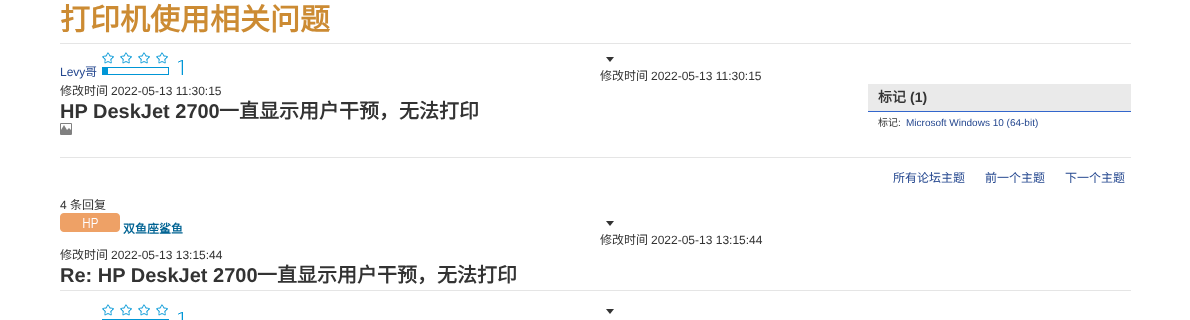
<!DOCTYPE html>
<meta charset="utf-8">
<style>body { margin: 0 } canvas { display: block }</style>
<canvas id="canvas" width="1190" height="320"></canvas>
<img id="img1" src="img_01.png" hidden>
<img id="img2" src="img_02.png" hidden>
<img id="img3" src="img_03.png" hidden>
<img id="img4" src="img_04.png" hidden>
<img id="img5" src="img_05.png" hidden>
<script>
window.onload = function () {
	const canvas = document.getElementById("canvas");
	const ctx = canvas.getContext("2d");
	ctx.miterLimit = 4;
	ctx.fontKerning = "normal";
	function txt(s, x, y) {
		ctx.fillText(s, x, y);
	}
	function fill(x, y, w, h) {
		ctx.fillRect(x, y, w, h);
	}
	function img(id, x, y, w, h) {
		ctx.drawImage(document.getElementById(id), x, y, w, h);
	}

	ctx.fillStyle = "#FFFFFF";
	fill(0, 0, 1190, 320);
	ctx.fillStyle = "#E5E5E5";
	fill(60, 43, 1071, 1);
	fill(60, 157, 1071, 1);
	img("img1", 102, 52, 81, 23);
	img("img2", 606, 57, 8, 5);
	img("img3", 60, 123, 12, 12);
	ctx.fillStyle = "#EAEAEA";
	fill(868, 84, 263, 27);
	ctx.fillStyle = "#3366CC";
	fill(868, 111, 263, 1);
	ctx.fillStyle = "#E5E5E5";
	fill(60, 290, 1071, 1);
	img("img4", 60, 213, 60, 19);
	img("img2", 606, 221, 8, 5);
	img("img5", 102, 304, 81, 16);
	img("img2", 606, 309, 8, 5);
	ctx.font = "bold 30px Noto Sans CJK SC";
	ctx.fillStyle = "#CC8B33";
	txt("打印机使用相关问题", 60, 30);
	ctx.font = "12px Liberation Sans";
	ctx.fillStyle = "#24478F";
	txt("Levy", 60, 76);
	ctx.font = "12px Noto Sans CJK SC";
	txt("哥", 85, 76);
	ctx.fillStyle = "#333333";
	txt("修改时间", 600, 80);
	ctx.font = "12px Liberation Sans";
	txt("2022-05-13 11:30:15", 651, 80);
	ctx.font = "12px Noto Sans CJK SC";
	txt("修改时间", 60, 95);
	ctx.font = "12px Liberation Sans";
	txt("2022-05-13 11:30:15", 111, 95);
	ctx.font = "bold 20px Liberation Sans";
	txt("HP DeskJet 2700", 60, 118);
	ctx.font = "bold 20px Noto Sans CJK SC";
	txt("一直显示用户干预，无法打印", 219, 118);
	ctx.font = "bold 14px Noto Sans CJK SC";
	txt("标记", 878, 102);
	ctx.font = "bold 14px Liberation Sans";
	txt("(1)", 910, 102);
	ctx.font = "10px Noto Sans CJK SC";
	txt("标记", 878, 126);
	ctx.font = "10px Liberation Sans";
	txt(":", 898, 126);
	ctx.fillStyle = "#24478F";
	txt("Microsoft Windows 10 (64-bit)", 906, 126);
	ctx.font = "12px Noto Sans CJK SC";
	txt("所有论坛主题", 893, 182);
	txt("前一个主题", 985, 182);
	txt("下一个主题", 1065, 182);
	ctx.font = "12px Liberation Sans";
	ctx.fillStyle = "#333333";
	txt("4", 60, 209);
	ctx.font = "12px Noto Sans CJK SC";
	txt("条回复", 70, 209);
	ctx.font = "bold 12px Noto Sans CJK SC";
	ctx.fillStyle = "#006393";
	txt("双鱼座鲨鱼", 123, 233);
	ctx.font = "12px Noto Sans CJK SC";
	ctx.fillStyle = "#333333";
	txt("修改时间", 600, 244);
	ctx.font = "12px Liberation Sans";
	txt("2022-05-13 13:15:44", 651, 244);
	ctx.font = "12px Noto Sans CJK SC";
	txt("修改时间", 60, 259);
	ctx.font = "12px Liberation Sans";
	txt("2022-05-13 13:15:44", 111, 259);
	ctx.font = "bold 20px Liberation Sans";
	txt("Re: HP DeskJet 2700", 60, 282);
	ctx.font = "bold 20px Noto Sans CJK SC";
	txt("一直显示用户干预，无法打印", 257, 282);
};
</script>
